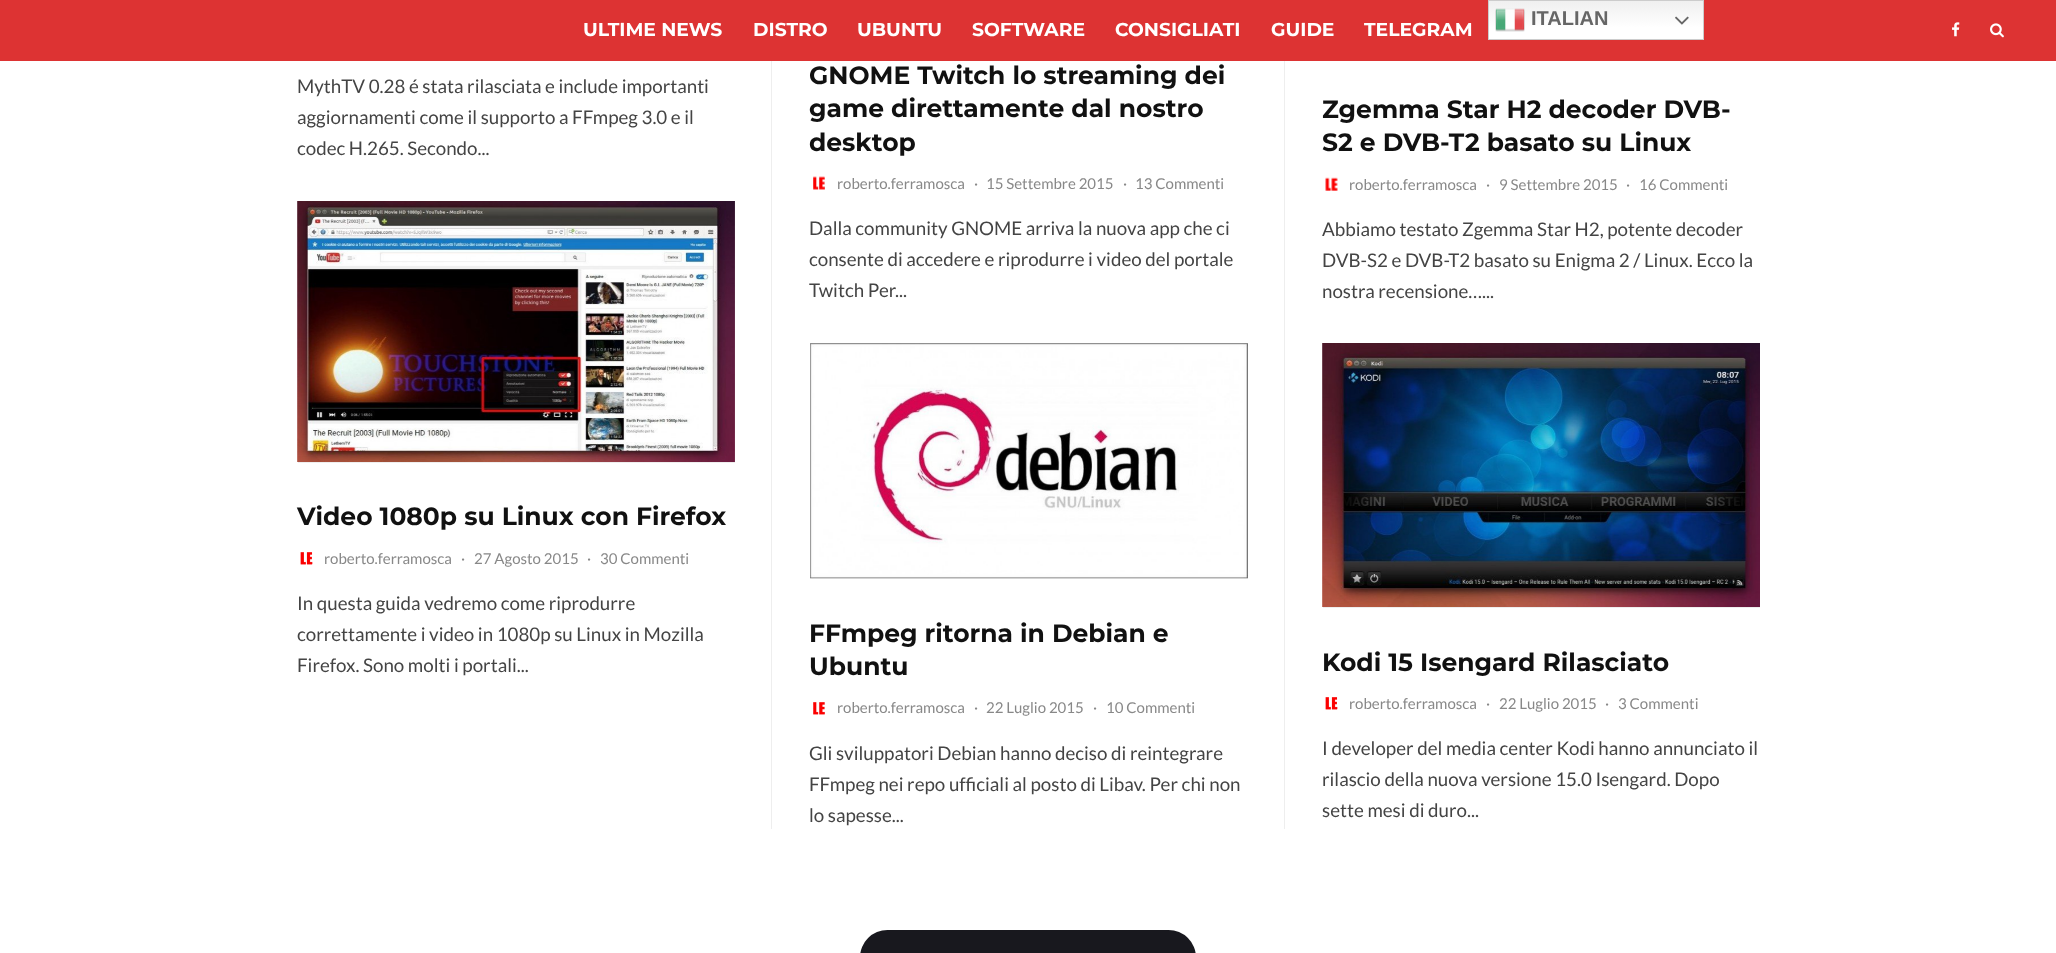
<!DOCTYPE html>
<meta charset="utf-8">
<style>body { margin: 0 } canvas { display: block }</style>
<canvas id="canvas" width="2056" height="953"></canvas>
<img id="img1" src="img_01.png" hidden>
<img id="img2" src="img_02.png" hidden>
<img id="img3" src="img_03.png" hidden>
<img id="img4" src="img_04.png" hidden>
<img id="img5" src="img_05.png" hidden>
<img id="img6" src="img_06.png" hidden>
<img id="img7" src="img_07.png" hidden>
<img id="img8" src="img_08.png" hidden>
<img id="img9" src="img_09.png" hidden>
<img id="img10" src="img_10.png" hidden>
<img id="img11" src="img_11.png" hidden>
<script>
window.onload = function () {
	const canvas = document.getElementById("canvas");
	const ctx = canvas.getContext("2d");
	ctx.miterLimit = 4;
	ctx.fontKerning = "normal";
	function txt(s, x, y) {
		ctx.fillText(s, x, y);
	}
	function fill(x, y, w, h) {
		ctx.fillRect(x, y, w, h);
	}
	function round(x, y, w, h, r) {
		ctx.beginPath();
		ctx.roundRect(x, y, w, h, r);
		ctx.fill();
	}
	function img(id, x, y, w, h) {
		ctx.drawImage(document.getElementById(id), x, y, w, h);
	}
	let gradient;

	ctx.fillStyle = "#FFFFFF";
	fill(0, 0, 2056, 953);
	ctx.fillStyle = "#DD3333";
	fill(0, 0, 2056, 61);
	gradient = ctx.createLinearGradient(1596, 0, 1596, 40);
	gradient.addColorStop(0, "#EFEFEF");
	gradient.addColorStop(0.7, "#FFFFFF");
	ctx.fillStyle = gradient;
	fill(1489, 1, 214, 38);
	ctx.strokeStyle = "#CCCCCC";
	ctx.strokeRect(1488.5, 0.5, 215, 39);
	img("img1", 1495, 8, 30, 24);
	img("img2", 1675, 16, 14, 9);
	img("img3", 1952, 22, 8, 15);
	img("img4", 1990, 23, 14, 15);
	ctx.fillStyle = "#EEEEEE";
	fill(298, 201, 437, 262);
	img("img5", 297, 201, 438, 261);
	img("img6", 300, 552, 13, 13);
	fill(771, 61, 1, 768);
	img("img7", 813, 176, 12, 14);
	fill(810, 344, 438, 235);
	img("img8", 810, 343, 438, 236);
	img("img9", 813, 702, 12, 13);
	fill(1284, 61, 1, 768);
	img("img10", 1325, 177, 13, 14);
	fill(1323, 607, 437, 1);
	img("img11", 1322, 343, 438, 264);
	img("img6", 1325, 697, 13, 13);
	ctx.fillStyle = "#18181E";
	round(860, 930, 336, 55, 31.5);
	ctx.font = "bold 20px Liberation Sans";
	ctx.fillStyle = "#666666";
	txt("ITALIAN", 1531, 25);
	ctx.font = "bold 18.75px Montserrat";
	ctx.fillStyle = "#FFFFFF";
	txt("ULTIME NEWS", 583, 36);
	txt("DISTRO", 753, 36);
	txt("UBUNTU", 857, 36);
	txt("SOFTWARE", 972, 36);
	txt("CONSIGLIATI", 1115, 36);
	txt("GUIDE", 1271, 36);
	txt("TELEGRAM", 1364, 36);
	ctx.font = "18.75px Lato";
	ctx.fillStyle = "#444444";
	txt("MythTV 0.28 é stata rilasciata e include importanti", 297, 93);
	txt("aggiornamenti come il supporto a FFmpeg 3.0 e il", 297, 124);
	txt("codec H.265. Secondo...", 297, 155);
	ctx.font = "bold 25px Montserrat";
	ctx.fillStyle = "#111111";
	txt("Video 1080p su Linux con Firefox", 297, 525);
	ctx.font = "15px Lato";
	ctx.fillStyle = "#888888";
	txt("roberto.ferramosca", 324, 564);
	txt("·", 461, 564);
	txt("27 Agosto 2015", 474, 564);
	txt("·", 587, 564);
	txt("30 Commenti", 600, 564);
	ctx.font = "18.75px Lato";
	ctx.fillStyle = "#444444";
	txt("In questa guida vedremo come riprodurre", 297, 610);
	txt("correttamente i video in 1080p su Linux in Mozilla", 297, 641);
	txt("Firefox. Sono molti i portali...", 297, 672);
	ctx.font = "bold 25px Montserrat";
	ctx.fillStyle = "#111111";
	txt("GNOME Twitch lo streaming dei", 809, 84);
	txt("game direttamente dal nostro", 809, 117);
	txt("desktop", 809, 151);
	ctx.font = "15px Lato";
	ctx.fillStyle = "#888888";
	txt("roberto.ferramosca", 837, 189);
	txt("·", 974, 189);
	txt("15 Settembre 2015", 986, 189);
	txt("·", 1123, 189);
	txt("13 Commenti", 1135, 189);
	ctx.font = "18.75px Lato";
	ctx.fillStyle = "#444444";
	txt("Dalla community GNOME arriva la nuova app che ci", 809, 235);
	txt("consente di accedere e riprodurre i video del portale", 809, 266);
	txt("Twitch Per...", 809, 297);
	ctx.font = "bold 25px Montserrat";
	ctx.fillStyle = "#111111";
	txt("FFmpeg ritorna in Debian e", 809, 642);
	txt("Ubuntu", 809, 675);
	ctx.font = "15px Lato";
	ctx.fillStyle = "#888888";
	txt("roberto.ferramosca", 837, 713);
	txt("·", 974, 713);
	txt("22 Luglio 2015", 986, 713);
	txt("·", 1093, 713);
	txt("10 Commenti", 1106, 713);
	ctx.font = "18.75px Lato";
	ctx.fillStyle = "#444444";
	txt("Gli sviluppatori Debian hanno deciso di reintegrare", 809, 760);
	txt("FFmpeg nei repo ufficiali al posto di Libav. Per chi non", 809, 791);
	txt("lo sapesse...", 809, 822);
	ctx.font = "bold 25px Montserrat";
	ctx.fillStyle = "#111111";
	txt("Zgemma Star H2 decoder DVB-", 1322, 118);
	txt("S2 e DVB-T2 basato su Linux", 1322, 151);
	ctx.font = "15px Lato";
	ctx.fillStyle = "#888888";
	txt("roberto.ferramosca", 1349, 190);
	txt("·", 1486, 190);
	txt("9 Settembre 2015", 1499, 190);
	txt("·", 1626, 190);
	txt("16 Commenti", 1639, 190);
	ctx.font = "18.75px Lato";
	ctx.fillStyle = "#444444";
	txt("Abbiamo testato Zgemma Star H2, potente decoder", 1322, 236);
	txt("DVB-S2 e DVB-T2 basato su Enigma 2 / Linux. Ecco la", 1322, 267);
	txt("nostra recensione…...", 1322, 298);
	ctx.font = "bold 25px Montserrat";
	ctx.fillStyle = "#111111";
	txt("Kodi 15 Isengard Rilasciato", 1322, 671);
	ctx.font = "15px Lato";
	ctx.fillStyle = "#888888";
	txt("roberto.ferramosca", 1349, 709);
	txt("·", 1486, 709);
	txt("22 Luglio 2015", 1499, 709);
	txt("·", 1605, 709);
	txt("3 Commenti", 1618, 709);
	ctx.font = "18.75px Lato";
	ctx.fillStyle = "#444444";
	txt("I developer del media center Kodi hanno annunciato il", 1322, 755);
	txt("rilascio della nuova versione 15.0 Isengard. Dopo", 1322, 786);
	txt("sette mesi di duro...", 1322, 817);
};
</script>
